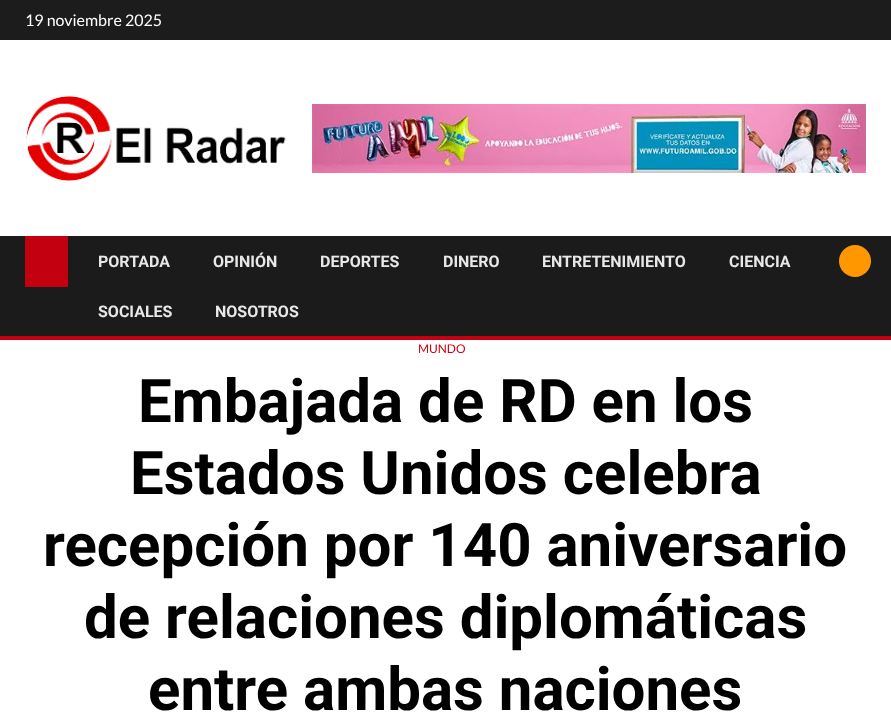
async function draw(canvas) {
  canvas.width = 891
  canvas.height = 728
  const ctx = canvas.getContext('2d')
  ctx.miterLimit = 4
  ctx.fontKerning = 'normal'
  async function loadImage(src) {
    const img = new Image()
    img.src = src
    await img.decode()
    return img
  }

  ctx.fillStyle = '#fff'
  ctx.fillRect(0, 0, 891, 728)
  ctx.fillStyle = '#1c1c1c'
  ctx.fillRect(0, 0, 891, 40)
  ctx.font = '16px Lato'
  ctx.fillStyle = '#fff'
  ctx.fillText('19 noviembre 2025', 25, 26)
  ctx.drawImage(await loadImage('image0.png'), 26, 96, 260, 85)
  ctx.drawImage(await loadImage('image1.png'), 312, 104, 554, 69)
  ctx.fillStyle = '#1b1b1b'
  ctx.fillRect(0, 236, 891, 100)
  ctx.fillStyle = '#c30010'
  ctx.fillRect(0, 336, 891, 4)
  ctx.fillRect(25, 236, 43, 51)
  ctx.font = 'bold 16px Roboto'
  ctx.fillStyle = '#e8e8e8'
  ctx.fillText('PORTADA', 98, 267)
  ctx.fillText('OPINIÓN', 213, 267)
  ctx.fillText('DEPORTES', 320, 267)
  ctx.fillText('DINERO', 443, 267)
  ctx.fillText('ENTRETENIMIENTO', 542, 267)
  ctx.fillText('CIENCIA', 729, 267)
  ctx.fillText('SOCIALES', 98, 317)
  ctx.fillText('NOSOTROS', 215, 317)
  ctx.fillStyle = '#ff9800'
  ctx.beginPath()
  ctx.arc(855, 261, 16, 0, 2 * Math.PI)
  ctx.fill()
  ctx.font = '12px Lato'
  ctx.fillStyle = '#cc0010'
  ctx.fillText('MUNDO', 418, 353)
  ctx.font = 'bold 60px Roboto'
  ctx.fillStyle = '#000'
  ctx.fillText('Embajada de RD en los', 138, 422)
  ctx.fillText('Estados Unidos celebra', 130, 494)
  ctx.fillText('recepción por 140 aniversario', 43, 566)
  ctx.fillText('de relaciones diplomáticas', 84, 638)
  ctx.fillText('entre ambas naciones', 148, 710)
}

draw(document.querySelector('canvas'))
